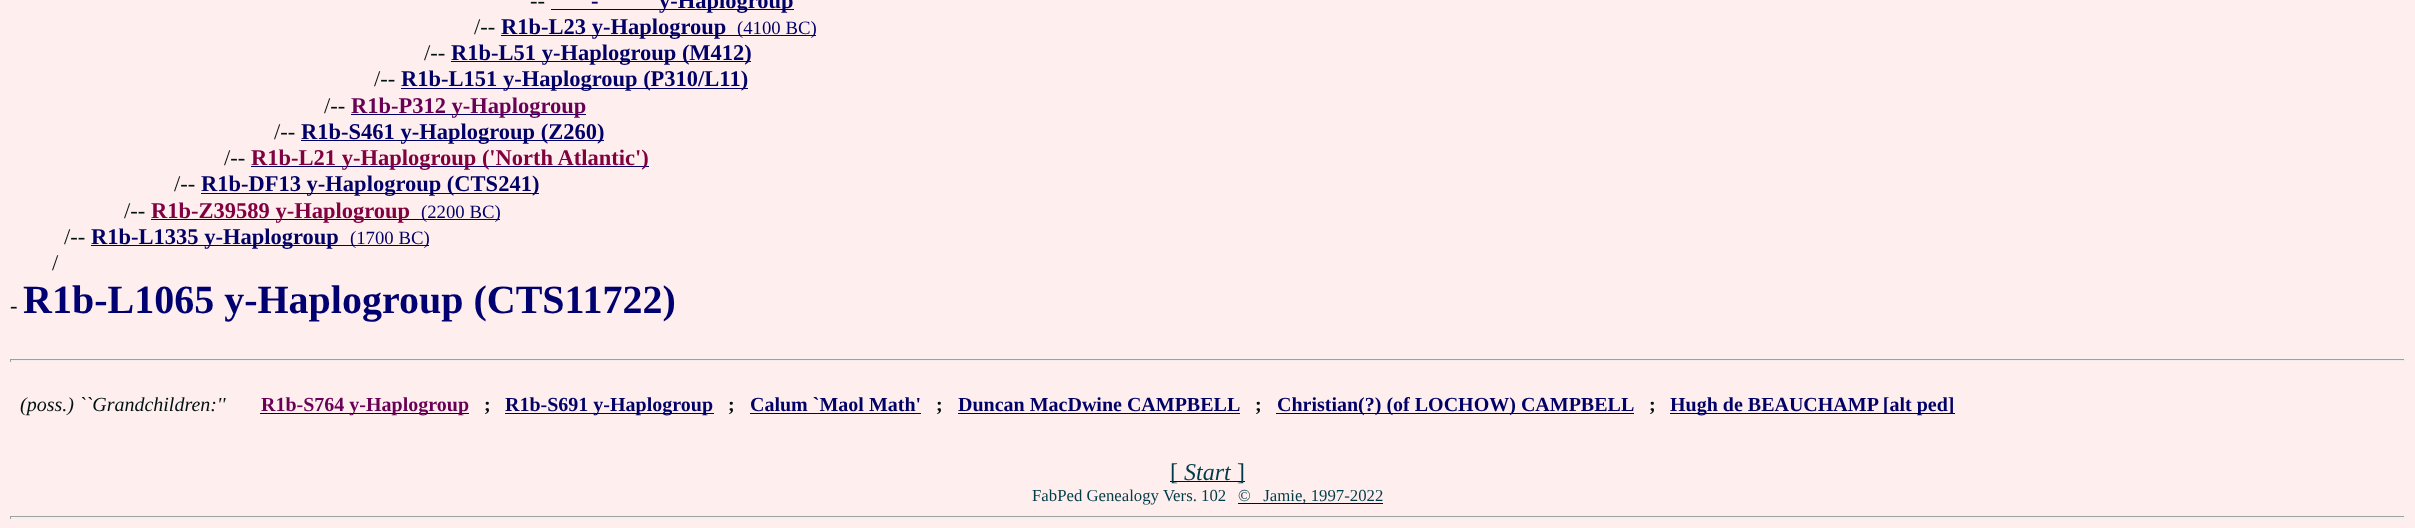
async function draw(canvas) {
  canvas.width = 2415
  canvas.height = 528
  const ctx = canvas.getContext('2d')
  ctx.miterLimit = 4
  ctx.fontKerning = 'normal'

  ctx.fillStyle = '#fee'
  ctx.fillRect(0, 0, 2415, 528)
  ctx.font = '22.5px Liberation Serif'
  ctx.fillStyle = '#011'
  ctx.fillText('--', 530, 8)
  ctx.font = 'bold 22.5px Liberation Serif'
  ctx.fillStyle = '#006'
  ctx.fillText('-', 591, 8)
  ctx.fillRect(551, 9, 243, 1)
  ctx.fillText('y-Haplogroup', 659, 8)
  ctx.font = '22.5px Liberation Serif'
  ctx.fillStyle = '#011'
  ctx.fillText('/--', 474, 34)
  ctx.fillStyle = '#006'
  ctx.fillRect(501, 35, 315, 1)
  ctx.font = 'bold 22.5px Liberation Serif'
  ctx.fillText('R1b-L23 y-Haplogroup', 501, 34)
  ctx.font = '18.75px Liberation Serif'
  ctx.fillText('(4100 BC)', 737, 34)
  ctx.font = '22.5px Liberation Serif'
  ctx.fillStyle = '#011'
  ctx.fillText('/--', 424, 60)
  ctx.fillStyle = '#006'
  ctx.fillRect(451, 61, 300, 1)
  ctx.font = 'bold 22.5px Liberation Serif'
  ctx.fillText('R1b-L51 y-Haplogroup (M412)', 451, 60)
  ctx.font = '22.5px Liberation Serif'
  ctx.fillStyle = '#011'
  ctx.fillText('/--', 374, 86)
  ctx.fillStyle = '#006'
  ctx.fillRect(401, 88, 347, 1)
  ctx.font = 'bold 22.5px Liberation Serif'
  ctx.fillText('R1b-L151 y-Haplogroup (P310/L11)', 401, 86)
  ctx.font = '22.5px Liberation Serif'
  ctx.fillStyle = '#011'
  ctx.fillText('/--', 324, 113)
  ctx.fillStyle = '#006'
  ctx.fillRect(351, 114, 235, 1)
  ctx.font = 'bold 22.5px Liberation Serif'
  ctx.fillStyle = '#680056'
  ctx.fillText('R1b-P312 y-Haplogroup', 351, 113)
  ctx.font = '22.5px Liberation Serif'
  ctx.fillStyle = '#011'
  ctx.fillText('/--', 274, 139)
  ctx.fillStyle = '#006'
  ctx.fillRect(301, 140, 303, 1)
  ctx.font = 'bold 22.5px Liberation Serif'
  ctx.fillText('R1b-S461 y-Haplogroup (Z260)', 301, 139)
  ctx.font = '22.5px Liberation Serif'
  ctx.fillStyle = '#011'
  ctx.fillText('/--', 224, 165)
  ctx.fillStyle = '#006'
  ctx.fillRect(251, 166, 398, 1)
  ctx.font = 'bold 22.5px Liberation Serif'
  ctx.fillStyle = '#800040'
  ctx.fillText('R1b-L21 y-Haplogroup (\'North Atlantic\')', 251, 165)
  ctx.font = '22.5px Liberation Serif'
  ctx.fillStyle = '#011'
  ctx.fillText('/--', 174, 191)
  ctx.fillStyle = '#006'
  ctx.fillRect(201, 193, 338, 1)
  ctx.font = 'bold 22.5px Liberation Serif'
  ctx.fillText('R1b-DF13 y-Haplogroup (CTS241)', 201, 191)
  ctx.font = '22.5px Liberation Serif'
  ctx.fillStyle = '#011'
  ctx.fillText('/--', 124, 218)
  ctx.fillStyle = '#006'
  ctx.fillRect(151, 219, 349, 1)
  ctx.font = 'bold 22.5px Liberation Serif'
  ctx.fillStyle = '#800040'
  ctx.fillText('R1b-Z39589 y-Haplogroup', 151, 218)
  ctx.font = '18.75px Liberation Serif'
  ctx.fillStyle = '#006'
  ctx.fillText('(2200 BC)', 421, 218)
  ctx.font = '22.5px Liberation Serif'
  ctx.fillStyle = '#011'
  ctx.fillText('/--', 64, 244)
  ctx.fillStyle = '#006'
  ctx.fillRect(91, 245, 338, 1)
  ctx.font = 'bold 22.5px Liberation Serif'
  ctx.fillText('R1b-L1335 y-Haplogroup', 91, 244)
  ctx.font = '18.75px Liberation Serif'
  ctx.fillText('(1700 BC)', 350, 244)
  ctx.font = '22.5px Liberation Serif'
  ctx.fillStyle = '#011'
  ctx.fillText('/', 52, 270)
  ctx.fillText('-', 10, 313)
  ctx.font = 'bold 40px Liberation Serif'
  ctx.fillStyle = '#000070'
  ctx.fillText('R1b-L1065 y-Haplogroup (CTS11722)', 23, 313)
  ctx.fillStyle = '#9f9f9f'
  ctx.fillRect(10, 359, 2395, 1)
  ctx.fillStyle = '#eee'
  ctx.fillRect(2404, 359, 1, 3)
  ctx.fillRect(10, 360, 2395, 1)
  ctx.fillStyle = '#9f9f9f'
  ctx.fillRect(10, 359, 1, 3)
  ctx.font = 'italic 20px Liberation Serif'
  ctx.fillStyle = '#011'
  ctx.fillText('(poss.) ``Grandchildren:\'\'', 20, 411)
  ctx.fillStyle = '#006'
  ctx.fillRect(260, 413, 209, 1)
  ctx.font = 'bold 20px Liberation Serif'
  ctx.fillStyle = '#680056'
  ctx.fillText('R1b-S764 y-Haplogroup', 261, 411)
  ctx.fillStyle = '#011'
  ctx.fillText(';', 484, 411)
  ctx.fillStyle = '#006'
  ctx.fillRect(505, 413, 209, 1)
  ctx.fillText('R1b-S691 y-Haplogroup', 505, 411)
  ctx.fillStyle = '#011'
  ctx.fillText(';', 728, 411)
  ctx.fillStyle = '#006'
  ctx.fillText('Calum `Maol Math\'', 750, 411)
  ctx.fillRect(750, 413, 171, 1)
  ctx.fillStyle = '#011'
  ctx.fillText(';', 936, 411)
  ctx.fillStyle = '#006'
  ctx.fillText('Duncan MacDwine CAMPBELL', 958, 411)
  ctx.fillRect(958, 413, 282, 1)
  ctx.fillStyle = '#011'
  ctx.fillText(';', 1255, 411)
  ctx.fillStyle = '#006'
  ctx.fillRect(1276, 413, 358, 1)
  ctx.fillText('Christian(?) (of LOCHOW) CAMPBELL', 1277, 411)
  ctx.fillStyle = '#011'
  ctx.fillText(';', 1649, 411)
  ctx.fillStyle = '#006'
  ctx.fillRect(1670, 413, 285, 1)
  ctx.fillText('Hugh de BEAUCHAMP [alt ped]', 1670, 411)
  ctx.fillRect(1170, 481, 75, 1)
  ctx.font = '24px Liberation Serif'
  ctx.fillStyle = '#003c48'
  ctx.fillText('[', 1170, 480)
  ctx.font = 'italic 24px Liberation Serif'
  ctx.fillText('Start', 1184, 480)
  ctx.font = '24px Liberation Serif'
  ctx.fillText(']', 1237, 480)
  ctx.font = '16.75px Liberation Serif'
  ctx.fillText('FabPed Genealogy Vers. 102', 1032, 501)
  ctx.fillStyle = '#006'
  ctx.fillRect(1238, 503, 145, 1)
  ctx.fillStyle = '#003c48'
  ctx.fillText('©   Jamie, 1997-2022', 1238, 501)
  ctx.fillStyle = '#9f9f9f'
  ctx.fillRect(10, 516, 2395, 1)
  ctx.fillStyle = '#eee'
  ctx.fillRect(2404, 516, 1, 3)
  ctx.fillRect(10, 518, 2395, 1)
  ctx.fillStyle = '#9f9f9f'
  ctx.fillRect(10, 516, 1, 3)
}

draw(document.querySelector('canvas'))
